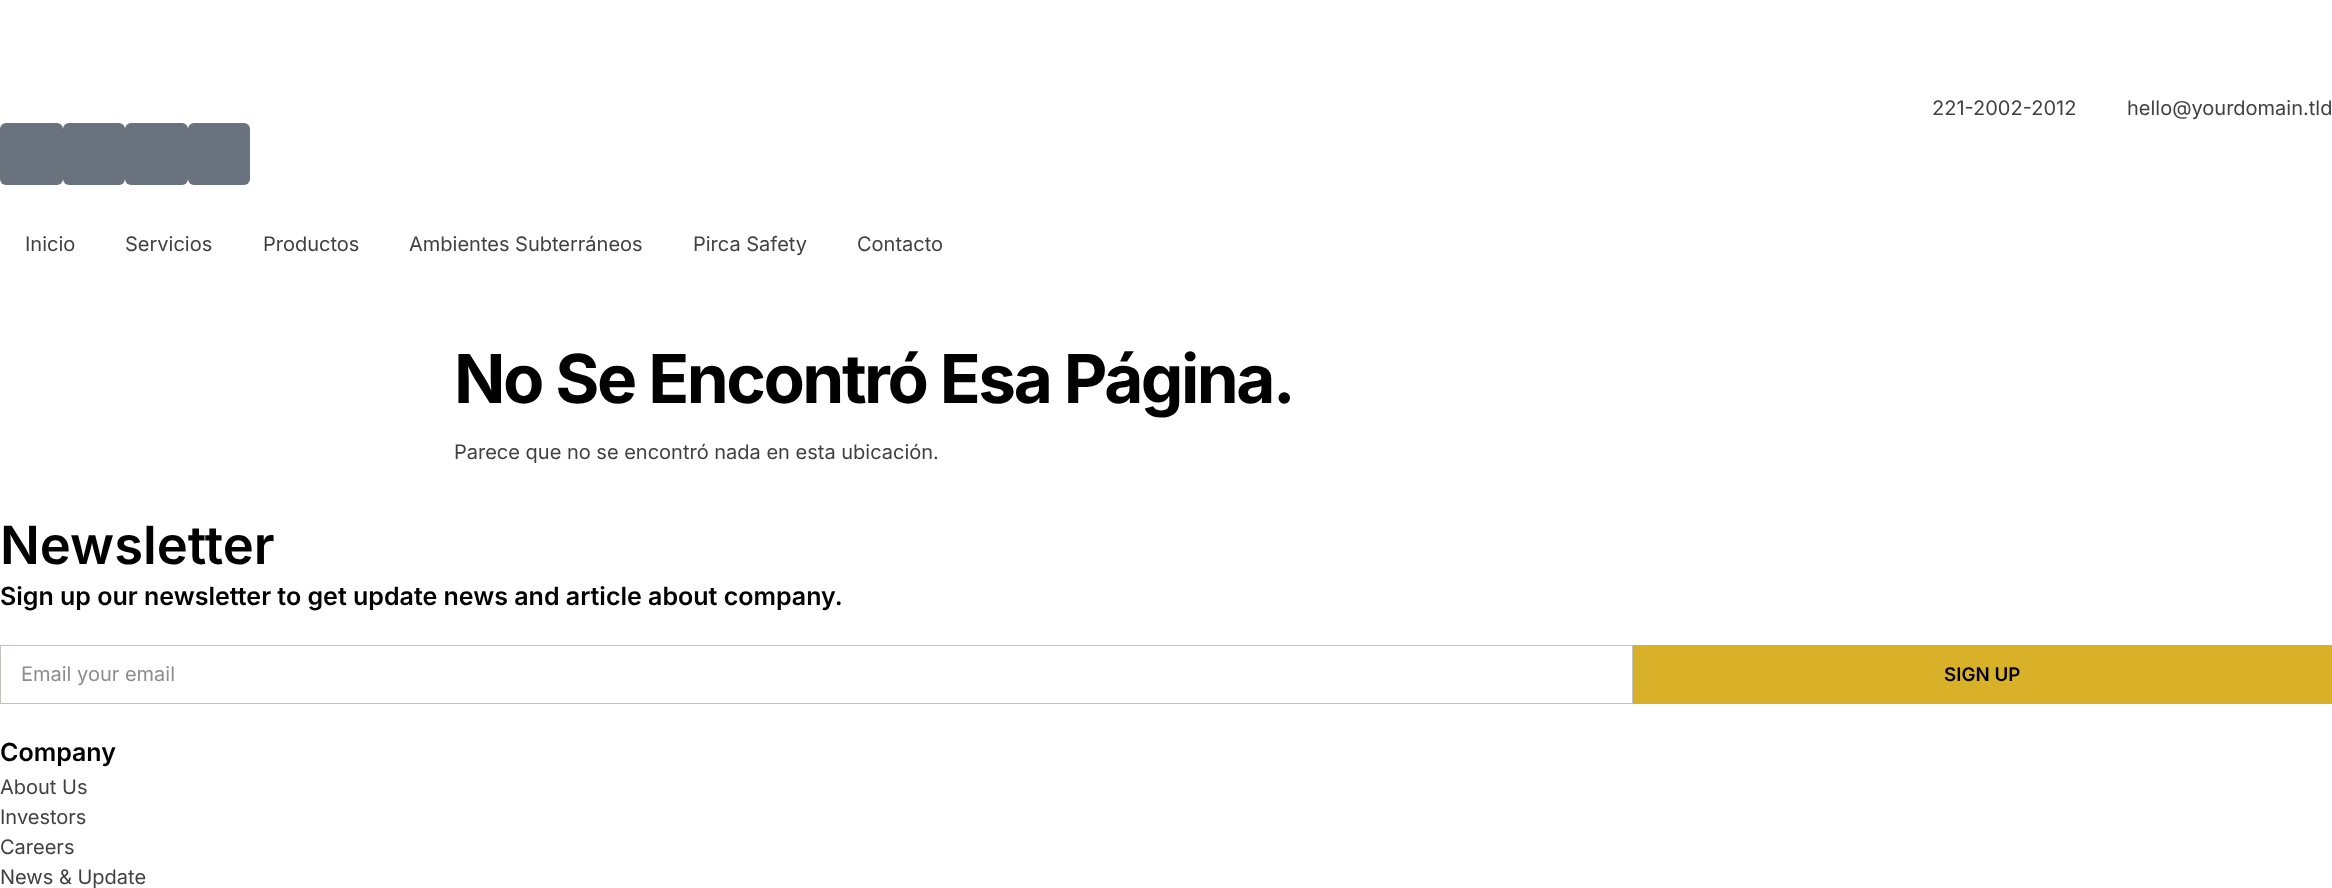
async function draw(canvas) {
  canvas.width = 2332
  canvas.height = 888
  const ctx = canvas.getContext('2d')
  ctx.miterLimit = 4
  ctx.fontKerning = 'normal'

  ctx.fillStyle = '#fff'
  ctx.fillRect(0, 0, 2332, 888)
  ctx.font = '20px Inter'
  ctx.fillStyle = '#414141'
  ctx.fillText('221-2002-2012', 1932, 115)
  ctx.fillText('hello@yourdomain.tld', 2127, 115)
  ctx.fillStyle = '#69727d'
  ctx.beginPath()
  ctx.roundRect(0, 123, 63, 62, 6)
  ctx.fill()
  ctx.beginPath()
  ctx.roundRect(63, 123, 62, 62, 6)
  ctx.fill()
  ctx.beginPath()
  ctx.roundRect(125, 123, 63, 62, 6)
  ctx.fill()
  ctx.beginPath()
  ctx.roundRect(188, 123, 62, 62, 6)
  ctx.fill()
  ctx.fillStyle = '#414141'
  ctx.fillText('Inicio', 25, 251)
  ctx.fillText('Servicios', 125, 251)
  ctx.fillText('Productos', 263, 251)
  ctx.fillText('Ambientes Subterráneos', 409, 251)
  ctx.fillText('Pirca Safety', 693, 251)
  ctx.fillText('Contacto', 857, 251)
  ctx.letterSpacing = '-2.5px'
  ctx.font = 'bold 67.5px Inter'
  ctx.fillStyle = '#010101'
  ctx.fillText('No Se Encontró Esa Página.', 454, 403)
  ctx.letterSpacing = '0px'
  ctx.font = '20px Inter'
  ctx.fillStyle = '#414141'
  ctx.fillText('Parece que no se encontró nada en esta ubicación.', 454, 459)
  ctx.font = '600 52.5px Inter'
  ctx.fillStyle = '#010101'
  ctx.fillText('Newsletter', 0, 564)
  ctx.font = '600 25px Inter'
  ctx.fillText('Sign up our newsletter to get update news and article about company.', 0, 605)
  ctx.strokeStyle = '#bfc4c0'
  ctx.strokeRect(0.5, 645.5, 1632, 58)
  ctx.font = '20px Inter'
  ctx.fillStyle = '#8d8d8d'
  ctx.fillText('Email your email', 21, 681)
  ctx.fillStyle = '#d9b128'
  ctx.fillRect(1633, 645, 699, 59)
  ctx.font = '600 18.75px Inter'
  ctx.fillStyle = '#010101'
  ctx.fillText('SIGN UP', 1944, 681)
  ctx.font = '600 25px Inter'
  ctx.fillText('Company', 0, 761)
  ctx.font = '20px Inter'
  ctx.fillStyle = '#414141'
  ctx.fillText('About Us', 0, 794)
  ctx.fillText('Investors', 0, 824)
  ctx.fillText('Careers', 0, 854)
  ctx.fillText('News & Update', 0, 884)
}

draw(document.querySelector('canvas'))
